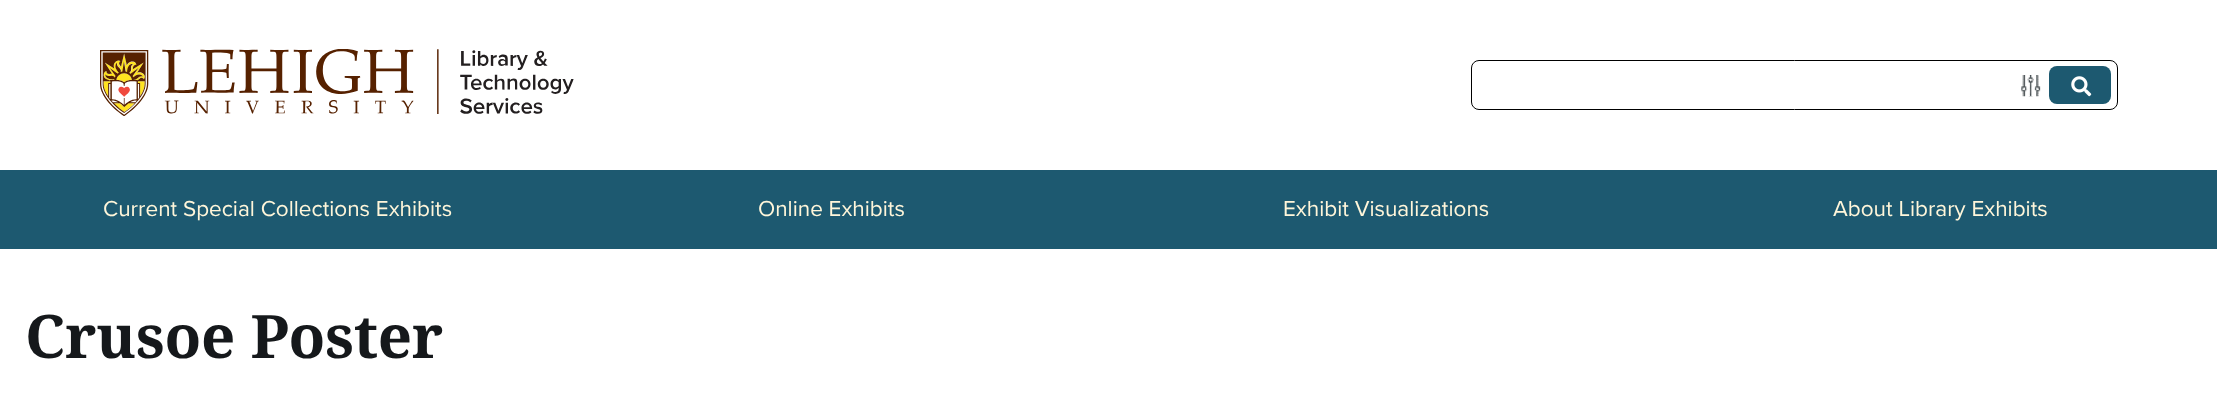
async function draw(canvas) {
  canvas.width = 2217
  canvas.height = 419
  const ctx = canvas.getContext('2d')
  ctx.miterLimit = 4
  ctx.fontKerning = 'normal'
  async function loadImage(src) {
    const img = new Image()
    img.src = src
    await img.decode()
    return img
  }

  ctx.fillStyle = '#fff'
  ctx.fillRect(0, 0, 2217, 419)
  ctx.drawImage(await loadImage('image0.png'), 100, 49, 474, 67)
  ctx.beginPath()
  ctx.roundRect(1471.5, 60.5, 646, 49, 7.5)
  ctx.strokeStyle = '#000'
  ctx.stroke()
  ctx.drawImage(await loadImage('image1.png'), 2021, 75, 20, 22)
  ctx.fillStyle = '#1d5970'
  ctx.beginPath()
  ctx.roundRect(2049, 66, 62, 38, 8)
  ctx.fill()
  ctx.drawImage(await loadImage('image2.png'), 2071, 76, 21, 21)
  ctx.fillRect(0, 170, 2217, 79)
  ctx.font = '22.5px Proxima Nova'
  ctx.fillStyle = '#fff6da'
  ctx.fillText('Current Special Collections Exhibits', 103, 216)
  ctx.fillText('Online Exhibits', 758, 216)
  ctx.fillText('Exhibit Visualizations', 1283, 216)
  ctx.fillText('About Library Exhibits', 1833, 216)
  ctx.letterSpacing = '-0.25px'
  ctx.font = 'bold 60px Noto Serif'
  ctx.fillStyle = '#15181b'
  ctx.fillText('Crusoe Poster', 25, 358)
}

draw(document.querySelector('canvas'))
